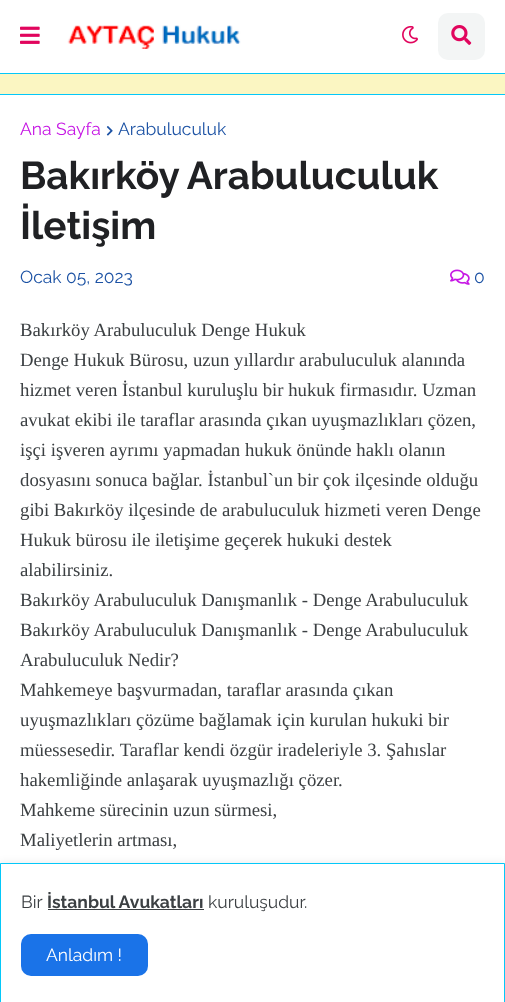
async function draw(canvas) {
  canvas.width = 505
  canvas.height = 1002
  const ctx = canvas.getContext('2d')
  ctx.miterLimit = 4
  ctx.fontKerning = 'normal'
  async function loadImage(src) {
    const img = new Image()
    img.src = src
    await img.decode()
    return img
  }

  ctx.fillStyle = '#fbf6c2'
  ctx.fillRect(0, 0, 505, 1002)
  ctx.fillStyle = '#fff'
  ctx.fillRect(0, 0, 505, 73)
  ctx.fillStyle = '#04c8f9'
  ctx.fillRect(0, 73, 505, 1)
  ctx.drawImage(await loadImage('image0.png'), 20, 26, 20, 18)
  ctx.drawImage(await loadImage('image1.png'), 67, 25, 174, 24)
  ctx.drawImage(await loadImage('image2.png'), 402, 25, 16, 19)
  ctx.fillStyle = '#f3f5f5'
  ctx.beginPath()
  ctx.roundRect(438, 13, 47, 47, 10)
  ctx.fill()
  ctx.drawImage(await loadImage('image3.png'), 451, 25, 21, 20)
  ctx.fillStyle = '#fff'
  ctx.fillRect(0, 95, 505, 768)
  ctx.fillStyle = '#04c8f9'
  ctx.fillRect(0, 94, 505, 1)
  ctx.font = '17.5px Raleway'
  ctx.fillStyle = '#c617e4'
  ctx.fillText('Ana Sayfa', 20, 135)
  ctx.drawImage(await loadImage('image4.png'), 106, 126, 7, 10)
  ctx.fillStyle = '#1c52a4'
  ctx.fillText('Arabuluculuk', 118, 135)
  ctx.font = 'bold 38.75px Raleway'
  ctx.fillStyle = '#202124'
  ctx.fillText('Bakırköy Arabuluculuk', 20, 189)
  ctx.fillText('İletişim', 20, 239)
  ctx.font = '17.5px Raleway'
  ctx.fillStyle = '#1c52a4'
  ctx.fillText('Ocak 05, 2023', 20, 283)
  ctx.drawImage(await loadImage('image5.png'), 450, 269, 20, 16)
  ctx.fillText('0', 474, 283)
  ctx.font = '18.75px Liberation Serif'
  ctx.fillStyle = '#3c4043'
  ctx.fillText('Bakırköy Arabuluculuk Denge Hukuk', 20, 336)
  ctx.fillText('Denge Hukuk Bürosu, uzun yıllardır arabuluculuk alanında', 20, 366)
  ctx.fillText('hizmet veren İstanbul kuruluşlu bir hukuk firmasıdır. Uzman', 20, 396)
  ctx.fillText('avukat ekibi ile taraflar arasında çıkan uyuşmazlıkları çözen,', 20, 426)
  ctx.fillText('işçi işveren ayrımı yapmadan hukuk önünde haklı olanın', 20, 456)
  ctx.fillText('dosyasını sonuca bağlar. İstanbul`un bir çok ilçesinde olduğu', 20, 486)
  ctx.fillText('gibi Bakırköy ilçesinde de arabuluculuk hizmeti veren Denge', 20, 516)
  ctx.fillText('Hukuk bürosu ile iletişime geçerek hukuki destek', 20, 546)
  ctx.fillText('alabilirsiniz.', 20, 576)
  ctx.fillText('Bakırköy Arabuluculuk Danışmanlık - Denge Arabuluculuk', 20, 606)
  ctx.fillText('Bakırköy Arabuluculuk Danışmanlık - Denge Arabuluculuk', 20, 636)
  ctx.fillText('Arabuluculuk Nedir?', 20, 666)
  ctx.fillText('Mahkemeye başvurmadan, taraflar arasında çıkan', 20, 696)
  ctx.fillText('uyuşmazlıkları çözüme bağlamak için kurulan hukuki bir', 20, 726)
  ctx.fillText('müessesedir. Taraflar kendi özgür iradeleriyle 3. Şahıslar', 20, 756)
  ctx.fillText('hakemliğinde anlaşarak uyuşmazlığı çözer.', 20, 786)
  ctx.fillText('Mahkeme sürecinin uzun sürmesi,', 20, 816)
  ctx.fillText('Maliyetlerin artması,', 20, 846)
  ctx.fillStyle = '#0000001a'
  ctx.filter = 'blur(5px)'
  ctx.beginPath()
  ctx.rect(0, 864, 505, 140)
  ctx.fill()
  ctx.filter = 'none'
  ctx.fillStyle = '#fff'
  ctx.beginPath()
  ctx.rect(0.5, 863.5, 504, 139)
  ctx.fill()
  ctx.strokeStyle = '#04c8f9'
  ctx.stroke()
  ctx.font = '17.5px Raleway'
  ctx.fillStyle = '#3c4043'
  ctx.fillText('Bir', 21, 908)
  ctx.font = 'bold 17.5px Raleway'
  ctx.fillText('İstanbul Avukatları', 47, 908)
  ctx.fillRect(48, 909, 156, 1)
  ctx.font = '17.5px Raleway'
  ctx.fillText('kuruluşudur.', 208, 908)
  ctx.fillStyle = '#1a73e8'
  ctx.beginPath()
  ctx.roundRect(21, 934, 127, 42, 10)
  ctx.fill()
  ctx.fillStyle = '#fff'
  ctx.fillText('Anladım !', 46, 961)
}

draw(document.querySelector('canvas'))
